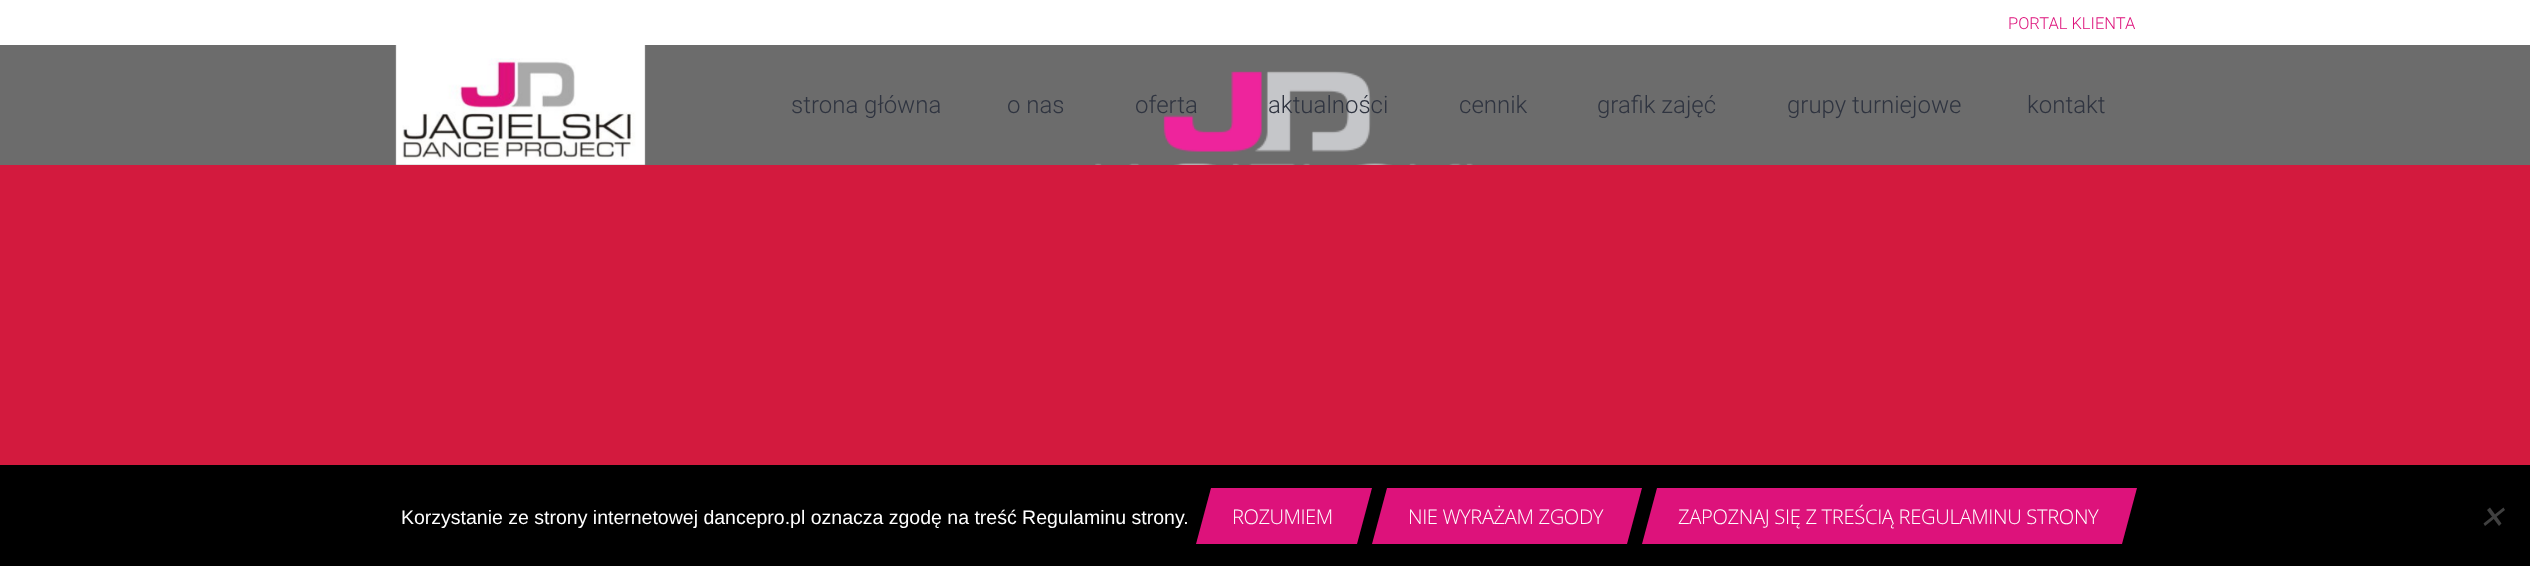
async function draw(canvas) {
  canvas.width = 2530
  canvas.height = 566
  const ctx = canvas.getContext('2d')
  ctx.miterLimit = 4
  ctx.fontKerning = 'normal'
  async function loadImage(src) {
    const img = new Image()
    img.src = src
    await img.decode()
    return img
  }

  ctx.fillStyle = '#545454'
  ctx.fillRect(0, 0, 2530, 566)
  ctx.fillStyle = '#fff'
  ctx.fillRect(0, 0, 2530, 45)
  ctx.font = '300 16.5px Roboto'
  ctx.fillStyle = '#dd127b'
  ctx.fillText('PORTAL KLIENTA', 2008, 29)
  ctx.drawImage(await loadImage('image1.png'), 1095, 71, 378, 94)
  ctx.fillStyle = '#ffffff24'
  ctx.fillRect(0, 45, 2530, 120)
  ctx.drawImage(await loadImage('image0.png'), 395, 45, 251, 120)
  ctx.font = '300 24px Roboto'
  ctx.fillStyle = '#2f3440'
  ctx.fillText('strona główna', 791, 113)
  ctx.fillText('o nas', 1007, 113)
  ctx.fillText('oferta', 1135, 113)
  ctx.fillText('aktualności', 1268, 113)
  ctx.fillText('cennik', 1459, 113)
  ctx.fillText('grafik zajęć', 1597, 113)
  ctx.fillText('grupy turniejowe', 1787, 113)
  ctx.fillText('kontakt', 2027, 113)
  ctx.fillStyle = '#d31a3e'
  ctx.fillRect(0, 165, 2530, 300)
  ctx.fillStyle = '#000'
  ctx.fillRect(0, 465, 2530, 101)
  ctx.font = '19.5px Liberation Sans'
  ctx.fillStyle = '#fff'
  ctx.fillText('Korzystanie ze strony internetowej dancepro.pl oznacza zgodę na treść Regulaminu strony.', 401, 524)
  ctx.fillStyle = '#dd127b'
  ctx.beginPath()
  ctx.moveTo(1211, 488)
  ctx.lineTo(1372, 488)
  ctx.lineTo(1357, 544)
  ctx.lineTo(1196, 544)
  ctx.closePath()
  ctx.fill()
  ctx.letterSpacing = '-0.5px'
  ctx.font = '300 20.2px Open Sans'
  ctx.fillStyle = '#fff'
  ctx.fillText('ROZUMIEM', 1232, 524)
  ctx.fillStyle = '#dd127b'
  ctx.beginPath()
  ctx.moveTo(1387, 488)
  ctx.lineTo(1642, 488)
  ctx.lineTo(1627, 544)
  ctx.lineTo(1372, 544)
  ctx.closePath()
  ctx.fill()
  ctx.letterSpacing = '-0.4px'
  ctx.fillStyle = '#fff'
  ctx.fillText('NIE WYRAŻAM ZGODY', 1408, 524)
  ctx.fillStyle = '#dd127b'
  ctx.beginPath()
  ctx.moveTo(1657, 488)
  ctx.lineTo(2137, 488)
  ctx.lineTo(2122, 544)
  ctx.lineTo(1642, 544)
  ctx.closePath()
  ctx.fill()
  ctx.letterSpacing = '-0.35px'
  ctx.fillStyle = '#fff'
  ctx.fillText('ZAPOZNAJ SIĘ Z TREŚCIĄ REGULAMINU STRONY', 1678, 524)
  ctx.fillStyle = '#404040'
  ctx.beginPath()
  ctx.moveTo(2503.5, 507.5)
  ctx.lineTo(2505, 510)
  ctx.lineTo(2485, 526)
  ctx.lineTo(2483.5, 523.5)
  ctx.closePath()
  ctx.fill()
  ctx.beginPath()
  ctx.moveTo(2487, 510)
  ctx.lineTo(2490, 507.5)
  ctx.lineTo(2501.5, 523.5)
  ctx.lineTo(2499, 526)
  ctx.closePath()
  ctx.fill()
}

draw(document.querySelector('canvas'))
